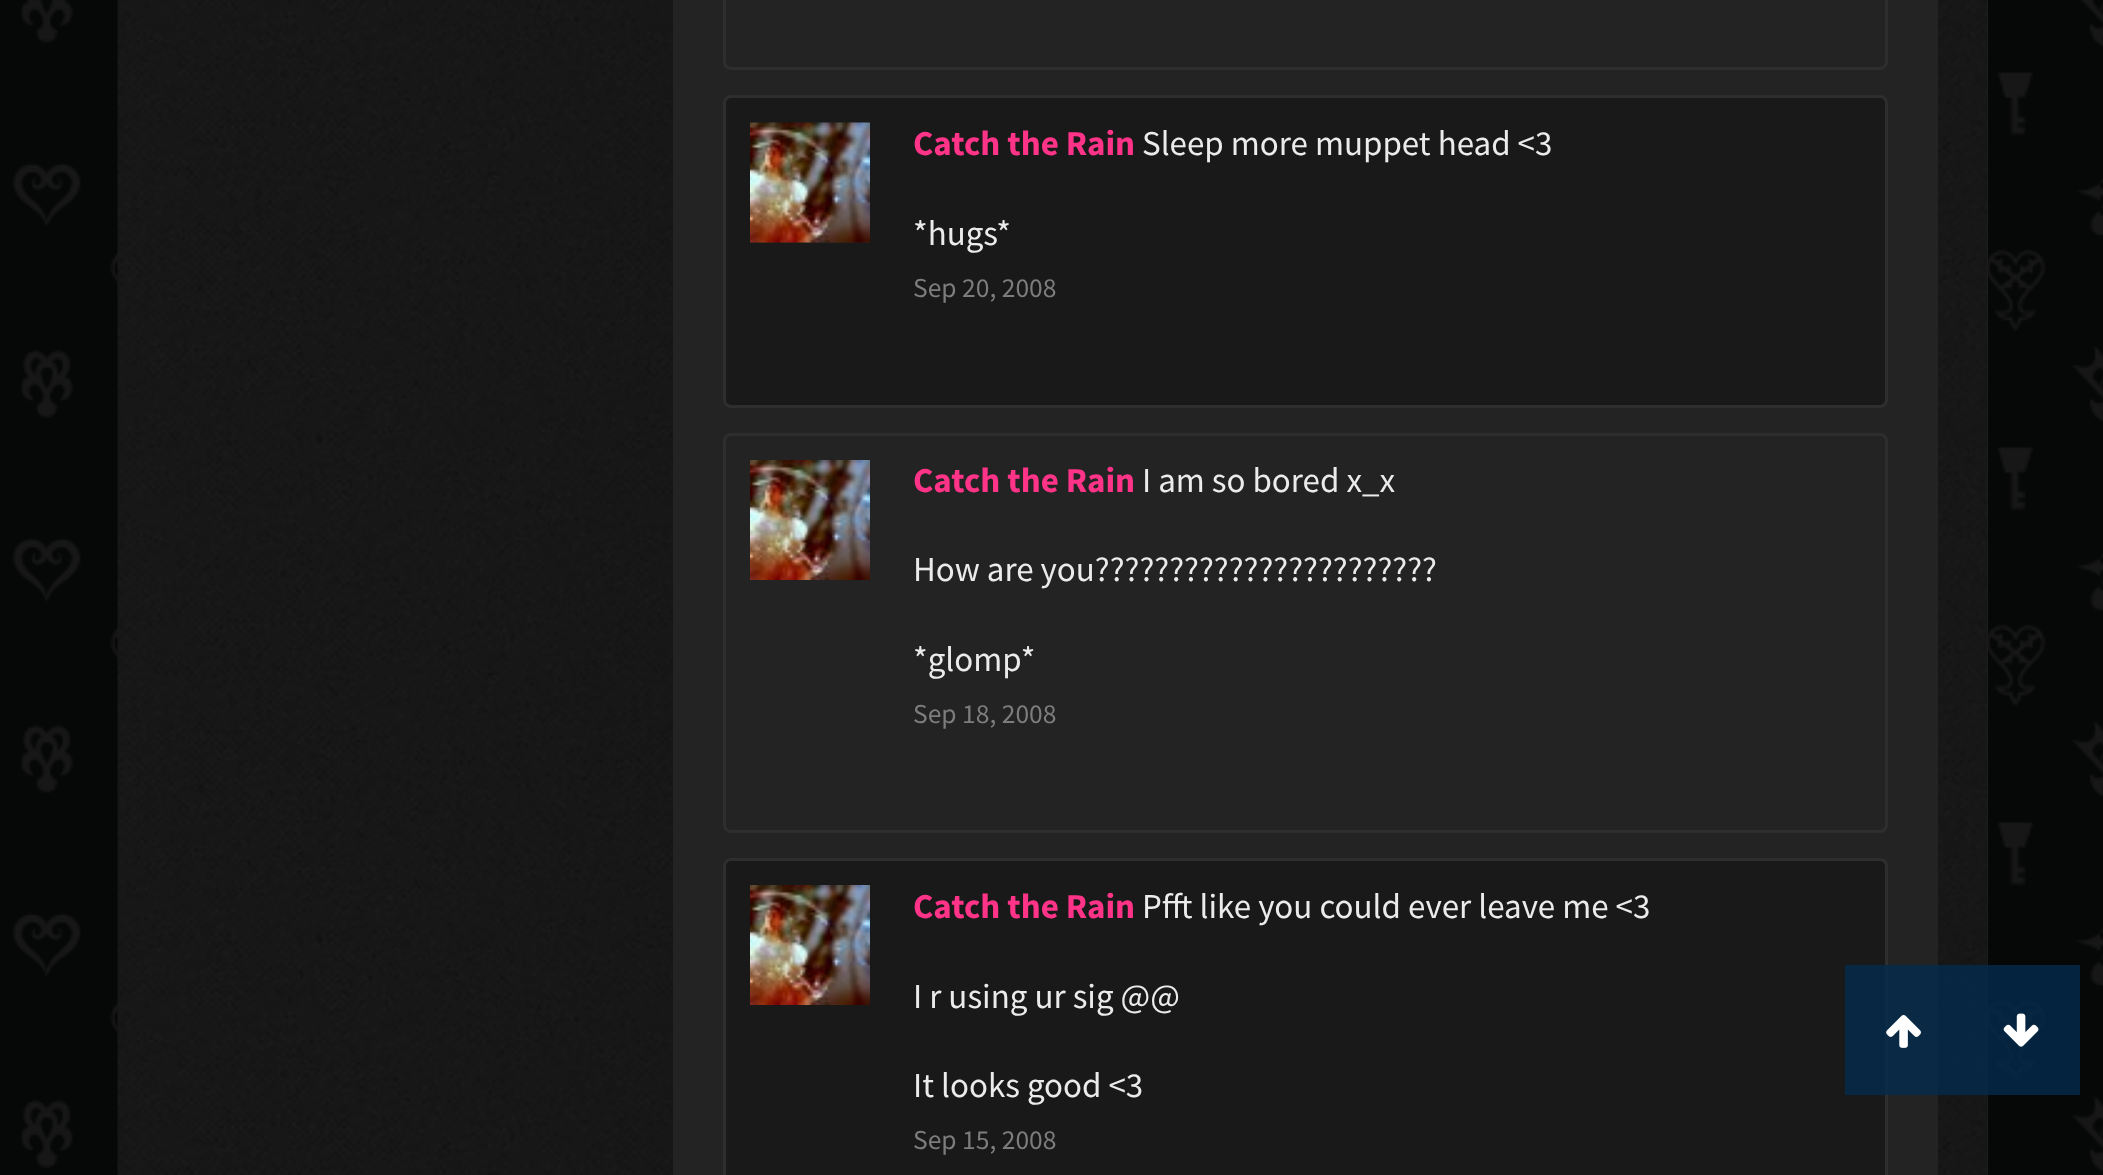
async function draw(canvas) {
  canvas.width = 2103
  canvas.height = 1175
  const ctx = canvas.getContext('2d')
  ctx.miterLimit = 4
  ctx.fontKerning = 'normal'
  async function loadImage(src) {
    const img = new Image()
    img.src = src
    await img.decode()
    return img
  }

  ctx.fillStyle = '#fff'
  ctx.fillRect(0, 0, 2103, 1175)
  ctx.drawImage(await loadImage('image0.png'), 0, 0, 2103, 1175)
  ctx.fillStyle = '#232323'
  ctx.fillRect(1987, 0, 1, 1175)
  ctx.drawImage(await loadImage('image1.png'), 117, 0, 1871, 1175)
  ctx.fillRect(673, 0, 1265, 1175)
  ctx.beginPath()
  ctx.roundRect(724.5, -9.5, 1162, 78, 6.5)
  ctx.strokeStyle = '#2e2e2e'
  ctx.lineWidth = 3
  ctx.stroke()
  ctx.fillStyle = '#191919'
  ctx.beginPath()
  ctx.roundRect(724.5, 96.5, 1162, 310, 6.5)
  ctx.fill()
  ctx.stroke()
  ctx.fillStyle = '#232323'
  ctx.fillRect(750, 242, 120, 1)
  ctx.drawImage(await loadImage('image2.png'), 750, 122, 120, 121)
  ctx.font = 'bold 35px Source Sans Pro'
  ctx.fillStyle = '#ff3387'
  ctx.fillText('Catch the Rain', 913, 155)
  ctx.font = '35px Source Sans Pro'
  ctx.fillStyle = '#ebebeb'
  ctx.fillText('Sleep more muppet head <3', 1142, 155)
  ctx.fillText('*hugs*', 913, 245)
  ctx.font = '27.5px Source Sans Pro'
  ctx.fillStyle = '#7d7d7d'
  ctx.fillText('Sep 20, 2008', 913, 297)
  ctx.beginPath()
  ctx.roundRect(724.5, 434.5, 1162, 397, 6.5)
  ctx.stroke()
  ctx.drawImage(await loadImage('image3.png'), 750, 460, 120, 120)
  ctx.font = 'bold 35px Source Sans Pro'
  ctx.fillStyle = '#ff3387'
  ctx.fillText('Catch the Rain', 913, 492)
  ctx.font = '35px Source Sans Pro'
  ctx.fillStyle = '#ebebeb'
  ctx.fillText('I am so bored x_x', 1142, 492)
  ctx.fillText('How are you???????????????????????', 913, 581)
  ctx.fillText('*glomp*', 913, 671)
  ctx.font = '27.5px Source Sans Pro'
  ctx.fillStyle = '#7d7d7d'
  ctx.fillText('Sep 18, 2008', 913, 723)
  ctx.fillStyle = '#191919'
  ctx.beginPath()
  ctx.roundRect(724.5, 859.5, 1162, 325, 6.5)
  ctx.fill()
  ctx.stroke()
  ctx.drawImage(await loadImage('image3.png'), 750, 885, 120, 120)
  ctx.font = 'bold 35px Source Sans Pro'
  ctx.fillStyle = '#ff3387'
  ctx.fillText('Catch the Rain', 913, 918)
  ctx.font = '35px Source Sans Pro'
  ctx.fillStyle = '#ebebeb'
  ctx.fillText('Pfft like you could ever leave me <3', 1142, 918)
  ctx.fillText('I r using ur sig @@', 913, 1008)
  ctx.fillText('It looks good <3', 913, 1097)
  ctx.font = '27.5px Source Sans Pro'
  ctx.fillStyle = '#7d7d7d'
  ctx.fillText('Sep 15, 2008', 913, 1149)
  ctx.fillStyle = '#022b4ecc'
  ctx.fillRect(1845, 965, 118, 130)
  ctx.drawImage(await loadImage('image4.png'), 1886, 1015, 35, 33)
  ctx.fillRect(1963, 965, 117, 130)
  ctx.drawImage(await loadImage('image5.png'), 2003, 1013, 36, 34)
}

draw(document.querySelector('canvas'))
